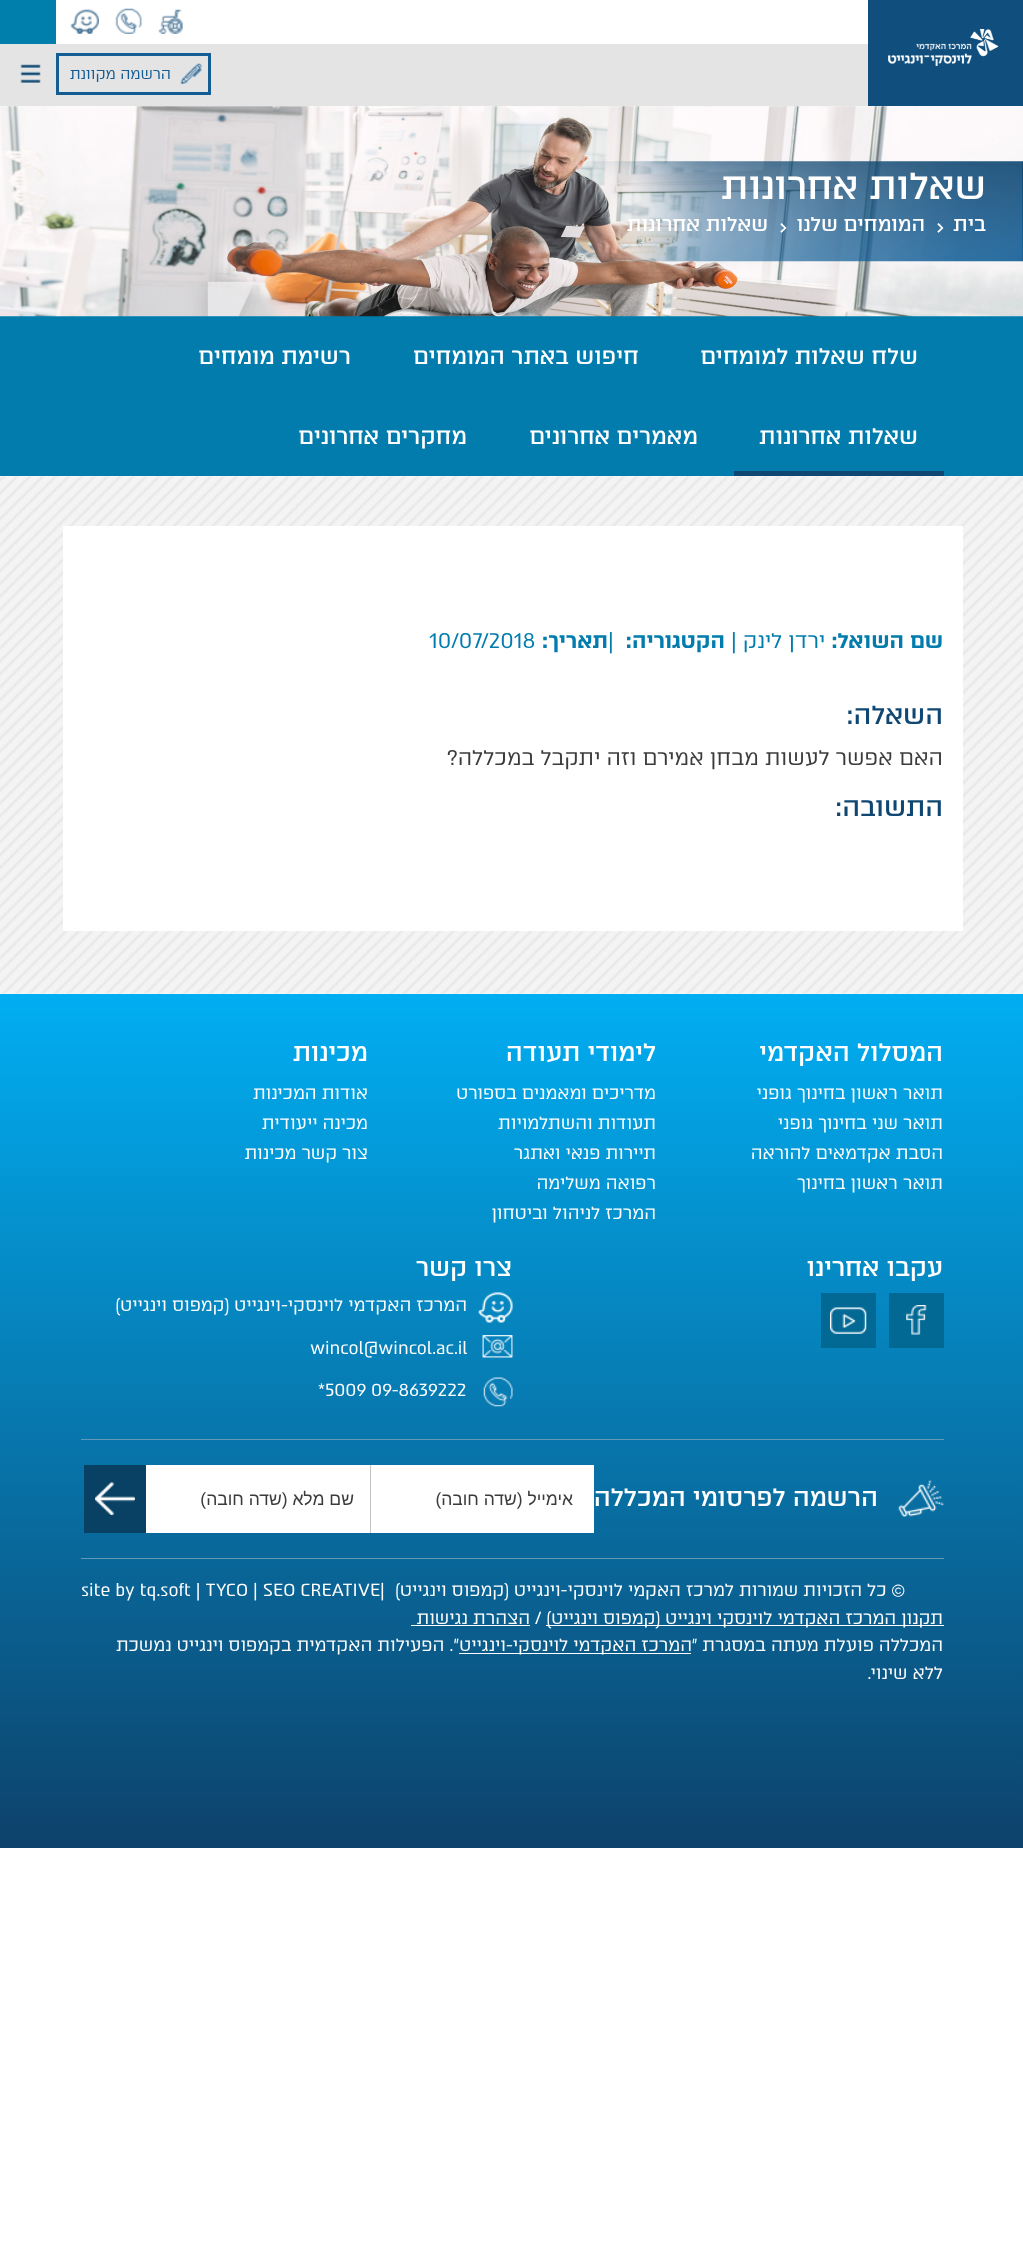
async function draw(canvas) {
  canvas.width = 1023
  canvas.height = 2254
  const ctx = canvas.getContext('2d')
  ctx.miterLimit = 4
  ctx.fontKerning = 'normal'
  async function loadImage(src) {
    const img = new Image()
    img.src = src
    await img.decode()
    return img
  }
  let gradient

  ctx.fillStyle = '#fff'
  ctx.fillRect(0, 0, 1023, 2254)
  ctx.fillStyle = '#104e7d'
  ctx.fillRect(868, 0, 155, 106)
  ctx.drawImage(await loadImage('image0.png'), 888, 29, 111, 37)
  ctx.drawImage(await loadImage('image1.png'), 158, 9, 25, 25)
  ctx.drawImage(await loadImage('image2.png'), 115, 8, 27, 26)
  ctx.drawImage(await loadImage('image3.png'), 70, 9, 29, 25)
  ctx.fillStyle = '#007fad'
  ctx.fillRect(0, 0, 56, 44)
  ctx.fillStyle = '#e4e4e4'
  ctx.fillRect(0, 44, 868, 62)
  ctx.strokeStyle = '#145d94'
  ctx.lineWidth = 3
  ctx.strokeRect(57.5, 54.5, 152, 39)
  ctx.drawImage(await loadImage('image4.png'), 180, 63, 22, 21)
  ctx.direction = 'rtl'
  ctx.font = '15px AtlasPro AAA'
  ctx.fillStyle = '#145d94'
  ctx.fillText('הרשמה מקוונת', 171, 79)
  ctx.drawImage(await loadImage('image5.png'), 20, 64, 21, 19)
  ctx.fillStyle = '#017cad'
  ctx.fillRect(0, 316, 1023, 160)
  ctx.drawImage(await loadImage('image6.png'), 0, 106, 1023, 211)
  ctx.drawImage(await loadImage('image7.png'), 586, 161, 437, 101)
  ctx.font = '500 37.5px AtlasPro AAA'
  ctx.fillStyle = '#fff'
  ctx.fillText('שאלות אחרונות', 986, 199)
  ctx.font = '500 20px AtlasPro AAA'
  ctx.fillText('בית', 986, 231)
  ctx.direction = 'ltr'
  ctx.fillText('>', 936, 234)
  ctx.direction = 'rtl'
  ctx.fillText('המומחים שלנו', 925, 231)
  ctx.direction = 'ltr'
  ctx.fillText('>', 779, 234)
  ctx.direction = 'rtl'
  ctx.fillText('שאלות אחרונות', 768, 231)
  ctx.font = '500 22.5px AtlasPro AAA'
  ctx.fillText('שלח שאלות למומחים', 918, 364)
  ctx.fillText('חיפוש באתר המומחים', 639, 364)
  ctx.fillText('רשימת מומחים', 351, 364)
  ctx.fillStyle = '#0f4772'
  ctx.fillRect(734, 471, 210, 5)
  ctx.fillStyle = '#fff'
  ctx.fillText('שאלות אחרונות', 918, 444)
  ctx.fillText('מאמרים אחרונים', 698, 444)
  ctx.fillText('מחקרים אחרונים', 467, 444)
  ctx.drawImage(await loadImage('image8.png'), 0, 476, 1023, 518)
  ctx.fillRect(63, 526, 900, 405)
  ctx.font = 'bold 21.25px AtlasPro AAA'
  ctx.fillStyle = '#017cad'
  ctx.fillText('שם השואל:', 943, 648)
  ctx.font = '21.25px AtlasPro AAA'
  ctx.fillText('ירדן לינק |', 825, 648)
  ctx.font = 'bold 21.25px AtlasPro AAA'
  ctx.fillText('הקטגוריה:', 725, 648)
  ctx.direction = 'ltr'
  ctx.font = '21.25px AtlasPro AAA'
  ctx.fillText('|', 608, 648)
  ctx.direction = 'rtl'
  ctx.font = 'bold 21.25px AtlasPro AAA'
  ctx.fillText('תאריך:', 608, 648)
  ctx.direction = 'ltr'
  ctx.font = '21.25px AtlasPro AAA'
  ctx.fillText('10/07/2018', 429, 648)
  ctx.direction = 'rtl'
  ctx.font = '500 26.25px AtlasPro AAA'
  ctx.fillStyle = '#0f4772'
  ctx.fillText('השאלה:', 943, 724)
  ctx.font = '21.25px AtlasPro AAA'
  ctx.fillStyle = '#3b3b3b'
  ctx.fillText('האם אפשר לעשות מבחן אמירם וזה יתקבל במכללה?', 943, 765)
  ctx.font = '500 26.25px AtlasPro AAA'
  ctx.fillStyle = '#0f4772'
  ctx.fillText('התשובה:', 943, 816)
  gradient = ctx.createLinearGradient(512, 994, 512, 1848)
  gradient.addColorStop(0, '#01aef2')
  gradient.addColorStop(1, '#0d426b')
  ctx.fillStyle = gradient
  ctx.fillRect(0, 994, 1023, 854)
  ctx.font = '500 25px AtlasPro AAA'
  ctx.fillStyle = '#fff'
  ctx.fillText('המסלול האקדמי', 943, 1061)
  ctx.font = '17.5px AtlasPro AAA'
  ctx.fillText('תואר ראשון בחינוך גופני', 943, 1099)
  ctx.fillText('תואר שני בחינוך גופני', 943, 1129)
  ctx.fillText('הסבת אקדמאים להוראה', 943, 1159)
  ctx.fillText('תואר ראשון בחינוך', 943, 1189)
  ctx.font = '500 25px AtlasPro AAA'
  ctx.fillText('לימודי תעודה', 656, 1061)
  ctx.font = '17.5px AtlasPro AAA'
  ctx.fillText('מדריכים ומאמנים בספורט', 656, 1099)
  ctx.fillText('תעודות והשתלמויות', 656, 1129)
  ctx.fillText('תיירות פנאי ואתגר', 656, 1159)
  ctx.fillText('רפואה משלימה', 656, 1189)
  ctx.fillText('המרכז לניהול וביטחון', 656, 1219)
  ctx.font = '500 25px AtlasPro AAA'
  ctx.fillText('מכינות', 368, 1061)
  ctx.font = '17.5px AtlasPro AAA'
  ctx.fillText('אודות המכינות', 368, 1099)
  ctx.fillText('מכינה ייעודית', 368, 1129)
  ctx.fillText('צור קשר מכינות', 368, 1159)
  ctx.font = '500 25px AtlasPro AAA'
  ctx.fillText('עקבו אחרינו', 943, 1276)
  ctx.fillStyle = '#026994'
  ctx.fillRect(889, 1293, 55, 55)
  ctx.drawImage(await loadImage('image9.png'), 906, 1305, 21, 30)
  ctx.fillRect(821, 1293, 55, 55)
  ctx.drawImage(await loadImage('image10.png'), 830, 1307, 37, 27)
  ctx.fillStyle = '#fff'
  ctx.fillText('צרו קשר', 512, 1276)
  ctx.drawImage(await loadImage('image11.png'), 478, 1292, 35, 31)
  ctx.font = '17.5px AtlasPro AAA'
  ctx.fillText('המרכז האקדמי לוינסקי-וינגייט (קמפוס וינגייט)', 467, 1311)
  ctx.drawImage(await loadImage('image12.png'), 482, 1335, 31, 23)
  ctx.direction = 'ltr'
  ctx.fillText('wincol@wincol.ac.il', 310, 1354)
  ctx.drawImage(await loadImage('image13.png'), 483, 1377, 30, 30)
  ctx.fillText('09-8639222', 371, 1396)
  ctx.fillText('*5009', 318, 1396)
  ctx.fillStyle = '#6299b7'
  ctx.fillRect(81, 1439, 863, 1)
  ctx.fillRect(81, 1558, 863, 1)
  ctx.drawImage(await loadImage('image14.png'), 898, 1480, 46, 38)
  ctx.direction = 'rtl'
  ctx.font = '500 25px AtlasPro AAA'
  ctx.fillStyle = '#fff'
  ctx.fillText('הרשמה לפרסומי המכללה', 878, 1506)
  ctx.fillRect(371, 1465, 223, 68)
  ctx.fillStyle = '#c4c4c4'
  ctx.fillRect(370, 1465, 1, 68)
  ctx.font = '17.5px Liberation Sans'
  ctx.fillStyle = '#3b3b3b'
  ctx.fillText('אימייל (שדה חובה)', 573, 1505)
  ctx.fillStyle = '#fff'
  ctx.fillRect(146, 1465, 224, 68)
  ctx.fillStyle = '#3b3b3b'
  ctx.fillText('שם מלא (שדה חובה)', 354, 1505)
  ctx.fillStyle = '#084163'
  ctx.fillRect(84, 1465, 62, 68)
  ctx.drawImage(await loadImage('image15.png'), 95, 1482, 40, 33)
  ctx.font = '17.5px AtlasPro AAA'
  ctx.fillStyle = '#fff'
  ctx.fillText('© כל הזכויות שמורות למרכז האקמי לוינסקי-וינגייט (קמפוס וינגייט)', 905, 1596)
  ctx.direction = 'ltr'
  ctx.fillText('|', 380, 1596)
  ctx.fillText('site by tq.soft | TYCO | SEO CREATIVE', 81, 1596)
  ctx.fillRect(546, 1625, 398, 1)
  ctx.direction = 'rtl'
  ctx.fillText('תקנון המרכז האקדמי לוינסקי וינגייט (קמפוס וינגייט)', 943, 1624)
  ctx.direction = 'ltr'
  ctx.fillText('/', 535, 1624)
  ctx.direction = 'rtl'
  ctx.fillText('הצהרת נגישות', 530, 1624)
  ctx.fillRect(411, 1625, 119, 1)
  ctx.fillText('המכללה פועלת מעתה במסגרת "', 943, 1651)
  ctx.fillRect(459, 1653, 232, 1)
  ctx.fillText('המרכז האקדמי לוינסקי-וינגייט', 692, 1651)
  ctx.fillText('". הפעילות האקדמית בקמפוס וינגייט נמשכת', 459, 1651)
  ctx.fillText('ללא שינוי.', 943, 1679)
}

draw(document.querySelector('canvas'))
